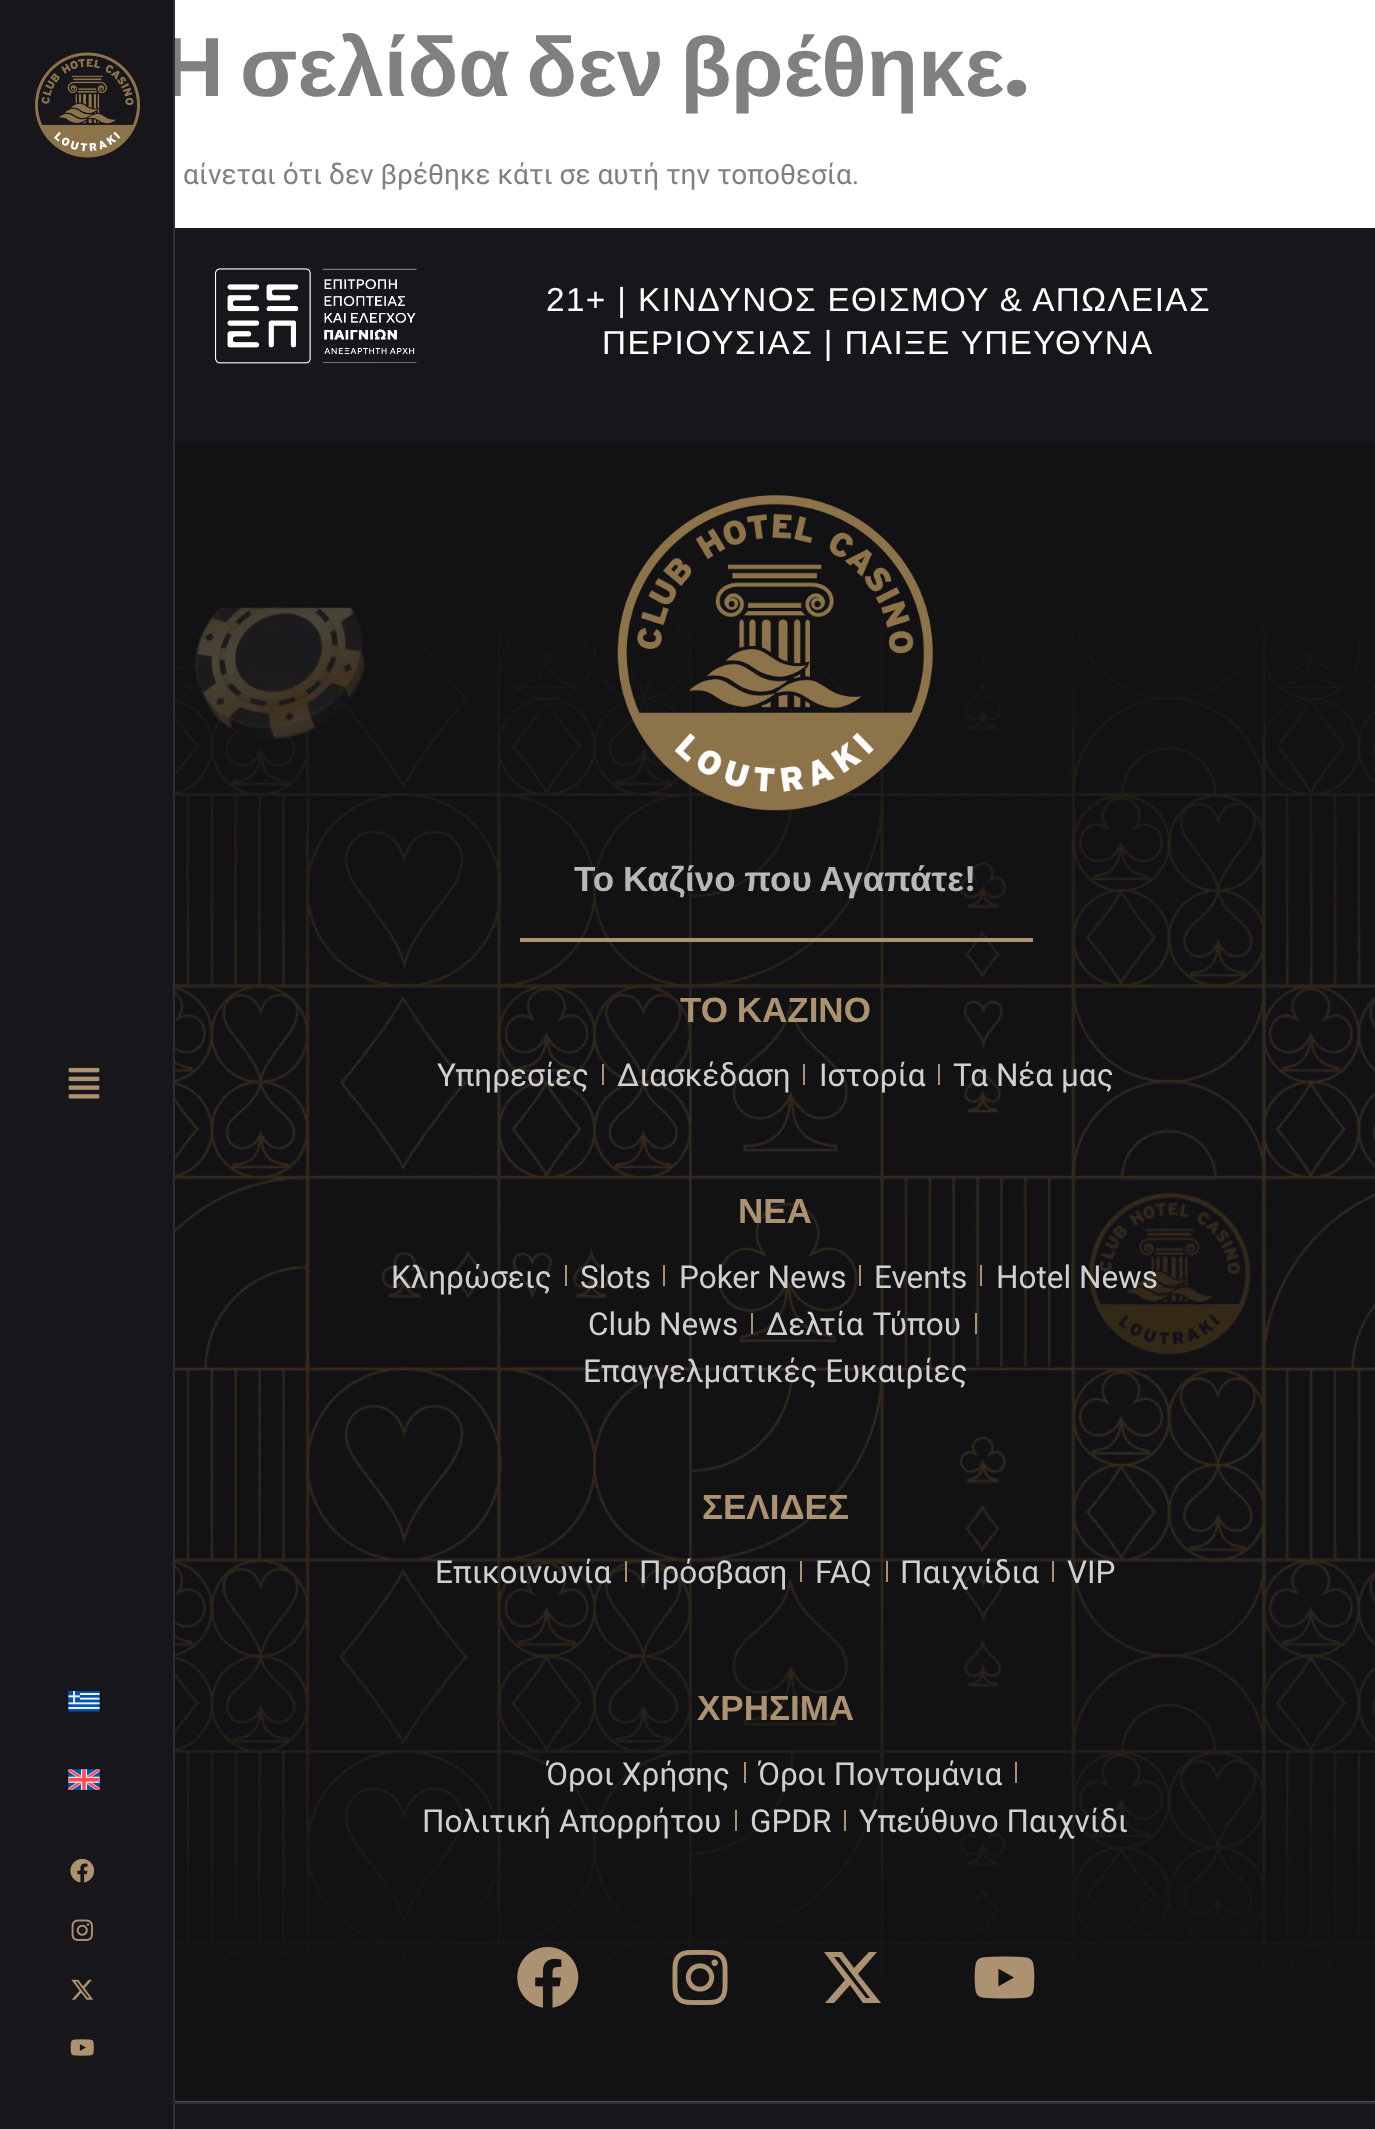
async function draw(canvas) {
  canvas.width = 1375
  canvas.height = 2129
  const ctx = canvas.getContext('2d')
  ctx.miterLimit = 4
  ctx.fontKerning = 'normal'
  async function loadImage(src) {
    const img = new Image()
    img.src = src
    await img.decode()
    return img
  }

  ctx.fillStyle = '#fff'
  ctx.fillRect(0, 0, 1375, 2129)
  ctx.wordSpacing = '-7px'
  ctx.font = 'bold 84px Liberation Sans'
  ctx.fillStyle = '#808080'
  ctx.fillText('Η σελίδα δεν βρέθηκε', 163, 96)
  ctx.fillStyle = '#17161a'
  ctx.fillRect(0, 0, 173, 2129)
  ctx.fillStyle = '#2e2d31'
  ctx.fillRect(173, 0, 2, 2129)
  ctx.drawImage(await loadImage('image0.png'), 35, 52, 105, 106)
  ctx.drawImage(await loadImage('image1.png'), 68, 1067, 32, 32)
  ctx.drawImage(await loadImage('image2.png'), 68, 1691, 32, 21)
  ctx.drawImage(await loadImage('image3.png'), 68, 1769, 32, 21)
  ctx.drawImage(await loadImage('image4.png'), 70, 1859, 25, 24)
  ctx.drawImage(await loadImage('image5.png'), 71, 1919, 22, 22)
  ctx.drawImage(await loadImage('image6.png'), 71, 1979, 23, 21)
  ctx.drawImage(await loadImage('image7.png'), 70, 2039, 24, 17)
  ctx.wordSpacing = '0px'
  ctx.font = '800 84px Poppins'
  ctx.fillStyle = '#808080'
  ctx.fillText('.', 1004, 96)
  ctx.font = '28px Roboto'
  ctx.fillText('αίνεται ότι δεν βρέθηκε κάτι σε αυτή την τοποθεσία.', 183, 184)
  ctx.fillStyle = '#17161a'
  ctx.fillRect(175, 228, 1200, 215)
  ctx.drawImage(await loadImage('image8.png'), 215, 268, 202, 96)
  ctx.letterSpacing = '1.4px'
  ctx.font = '33.25px Liberation Sans'
  ctx.fillStyle = '#fff'
  ctx.fillText('21+ | ΚΙΝΔΥΝΟΣ ΕΘΙΣΜΟΥ & ΑΠΩΛΕΙΑΣ', 546, 311)
  ctx.fillText('ΠΕΡΙΟΥΣΙΑΣ | ΠΑΙΞΕ ΥΠΕΥΘΥΝΑ', 602, 354)
  ctx.drawImage(await loadImage('image9.png'), 175, 442, 1200, 1660)
  ctx.drawImage(await loadImage('image10.png'), 617, 495, 316, 316)
  ctx.letterSpacing = '0px'
  ctx.wordSpacing = '-1px'
  ctx.font = 'bold 35px Liberation Sans'
  ctx.fillStyle = '#b8b8b9'
  ctx.fillText('Το Καζίνο που Αγαπάτε', 574, 891)
  ctx.wordSpacing = '0px'
  ctx.font = '600 35px Poppins'
  ctx.fillText('!', 964, 891)
  ctx.fillStyle = '#ad9271'
  ctx.fillRect(520, 938, 513, 4)
  ctx.wordSpacing = '-1px'
  ctx.font = 'bold 35px Liberation Sans'
  ctx.fillText('ΤΟ ΚΑΖΙΝΟ', 680, 1022)
  ctx.wordSpacing = '0px'
  ctx.font = '31.5px Roboto'
  ctx.fillStyle = '#d1d0d0'
  ctx.fillText('Υπηρεσίες', 437, 1086)
  ctx.fillStyle = '#ad9271'
  ctx.fillRect(602, 1064, 2, 21)
  ctx.fillStyle = '#d1d0d0'
  ctx.fillText('Διασκέδαση', 617, 1086)
  ctx.fillStyle = '#ad9271'
  ctx.fillRect(803, 1064, 2, 21)
  ctx.fillStyle = '#d1d0d0'
  ctx.fillText('Ιστορία', 819, 1086)
  ctx.fillStyle = '#ad9271'
  ctx.fillRect(938, 1064, 2, 21)
  ctx.fillStyle = '#d1d0d0'
  ctx.fillText('Τα Νέα μας', 953, 1086)
  ctx.font = 'bold 35px Liberation Sans'
  ctx.fillStyle = '#ad9271'
  ctx.fillText('ΝΕΑ', 738, 1223)
  ctx.font = '31.5px Roboto'
  ctx.fillStyle = '#d1d0d0'
  ctx.fillText('Κληρώσεις', 391, 1288)
  ctx.fillStyle = '#ad9271'
  ctx.fillRect(565, 1265, 2, 21)
  ctx.fillStyle = '#d1d0d0'
  ctx.fillText('Slots', 580, 1288)
  ctx.fillStyle = '#ad9271'
  ctx.fillRect(663, 1265, 2, 21)
  ctx.fillStyle = '#d1d0d0'
  ctx.fillText('Poker News', 679, 1288)
  ctx.fillStyle = '#ad9271'
  ctx.fillRect(859, 1265, 2, 21)
  ctx.fillStyle = '#d1d0d0'
  ctx.fillText('Events', 874, 1288)
  ctx.fillStyle = '#ad9271'
  ctx.fillRect(980, 1265, 2, 21)
  ctx.fillStyle = '#d1d0d0'
  ctx.fillText('Hotel News', 996, 1288)
  ctx.fillText('Club News', 588, 1335)
  ctx.fillStyle = '#ad9271'
  ctx.fillRect(751, 1313, 2, 21)
  ctx.wordSpacing = '1px'
  ctx.fillStyle = '#d1d0d0'
  ctx.fillText('Δελτία Τύπου', 766, 1335)
  ctx.fillStyle = '#ad9271'
  ctx.fillRect(975, 1313, 2, 21)
  ctx.wordSpacing = '0px'
  ctx.fillStyle = '#d1d0d0'
  ctx.fillText('Επαγγελματικές Ευκαιρίες', 583, 1382)
  ctx.font = 'bold 35px Liberation Sans'
  ctx.fillStyle = '#ad9271'
  ctx.fillText('ΣΕΛΙΔΕΣ', 702, 1519)
  ctx.font = '31.5px Roboto'
  ctx.fillStyle = '#d1d0d0'
  ctx.fillText('Επικοινωνία', 435, 1583)
  ctx.fillStyle = '#ad9271'
  ctx.fillRect(625, 1561, 2, 21)
  ctx.fillStyle = '#d1d0d0'
  ctx.fillText('Πρόσβαση', 639, 1583)
  ctx.fillStyle = '#ad9271'
  ctx.fillRect(800, 1561, 2, 21)
  ctx.fillStyle = '#d1d0d0'
  ctx.fillText('FAQ', 815, 1583)
  ctx.fillStyle = '#ad9271'
  ctx.fillRect(886, 1561, 2, 21)
  ctx.fillStyle = '#d1d0d0'
  ctx.fillText('Παιχνίδια', 900, 1583)
  ctx.fillStyle = '#ad9271'
  ctx.fillRect(1052, 1561, 2, 21)
  ctx.fillStyle = '#d1d0d0'
  ctx.fillText('VIP', 1067, 1583)
  ctx.font = 'bold 35px Liberation Sans'
  ctx.fillStyle = '#ad9271'
  ctx.fillText('ΧΡΗΣΙΜΑ', 697, 1720)
  ctx.font = '31.5px Roboto'
  ctx.fillStyle = '#d1d0d0'
  ctx.fillText('Όροι Χρήσης', 546, 1785)
  ctx.fillStyle = '#ad9271'
  ctx.fillRect(744, 1762, 2, 21)
  ctx.fillStyle = '#d1d0d0'
  ctx.fillText('Όροι Ποντομάνια', 758, 1785)
  ctx.fillStyle = '#ad9271'
  ctx.fillRect(1015, 1762, 2, 21)
  ctx.fillStyle = '#d1d0d0'
  ctx.fillText('Πολιτική Απορρήτου', 422, 1832)
  ctx.fillStyle = '#ad9271'
  ctx.fillRect(735, 1810, 2, 21)
  ctx.fillStyle = '#d1d0d0'
  ctx.fillText('GPDR', 750, 1832)
  ctx.fillStyle = '#ad9271'
  ctx.fillRect(844, 1810, 2, 21)
  ctx.fillStyle = '#d1d0d0'
  ctx.fillText('Υπεύθυνο Παιχνίδι', 859, 1832)
  ctx.drawImage(await loadImage('image11.png'), 517, 1947, 62, 61)
  ctx.drawImage(await loadImage('image12.png'), 672, 1949, 56, 57)
  ctx.fillStyle = '#ad9271'
  ctx.beginPath()
  ctx.moveTo(869, 1952)
  ctx.lineTo(877, 1952)
  ctx.lineTo(858, 1974)
  ctx.lineTo(881, 2003)
  ctx.lineTo(863, 2003)
  ctx.lineTo(850, 1985)
  ctx.lineTo(834, 2003)
  ctx.lineTo(825, 2003)
  ctx.lineTo(845, 1980)
  ctx.lineTo(824, 1952)
  ctx.lineTo(842, 1952)
  ctx.lineTo(854, 1968)
  ctx.closePath()
  ctx.moveTo(866, 1998)
  ctx.lineTo(870, 1998)
  ctx.lineTo(839, 1957)
  ctx.lineTo(834, 1957)
  ctx.closePath()
  ctx.fill()
  ctx.drawImage(await loadImage('image13.png'), 974, 1956, 61, 43)
  ctx.fillStyle = '#17161a'
  ctx.fillRect(175, 2104, 1200, 25)
  ctx.fillStyle = '#2e2d31'
  ctx.fillRect(175, 2102, 1200, 2)
}

draw(document.querySelector('canvas'))
